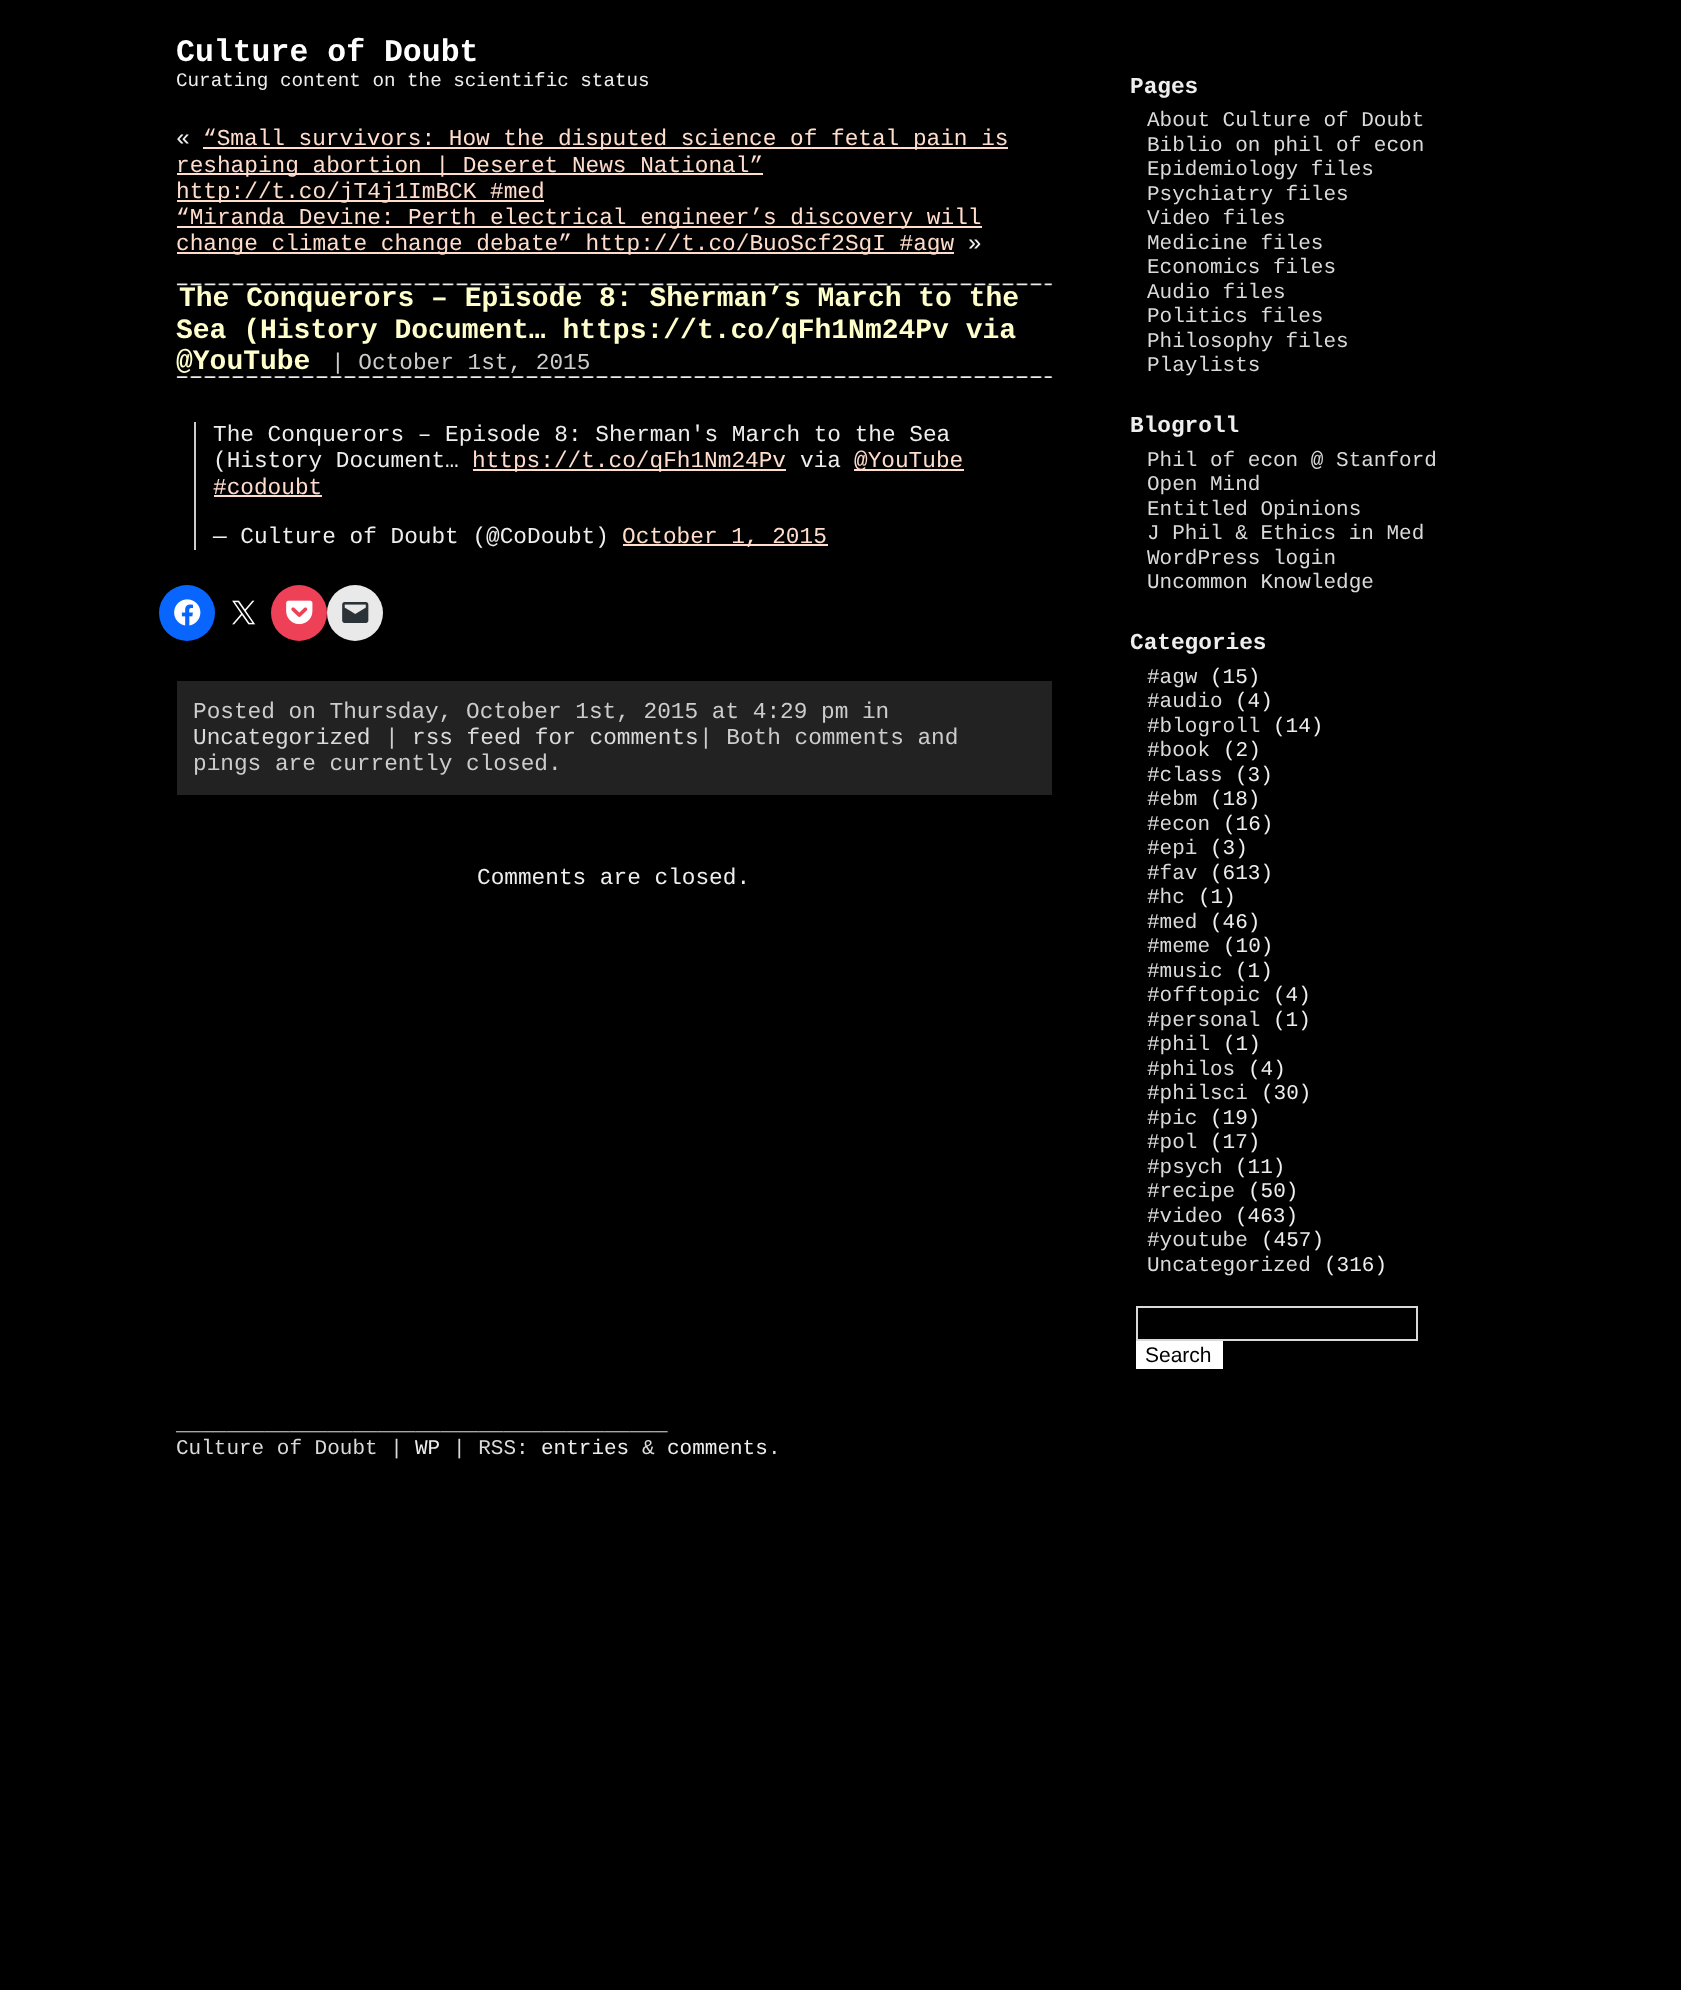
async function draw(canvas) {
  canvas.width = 1681
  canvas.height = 1990
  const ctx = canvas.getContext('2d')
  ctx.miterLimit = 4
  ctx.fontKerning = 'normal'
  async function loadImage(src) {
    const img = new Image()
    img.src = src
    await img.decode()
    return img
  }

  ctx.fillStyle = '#000'
  ctx.fillRect(0, 0, 1681, 1990)
  ctx.font = 'bold 31.5px Liberation Mono'
  ctx.fillStyle = '#fff'
  ctx.fillText('Culture of Doubt', 176, 61)
  ctx.font = '19.25px Liberation Mono'
  ctx.fillStyle = '#eee'
  ctx.fillText('Curating content on the scientific status', 176, 86)
  ctx.font = '22.75px Liberation Mono'
  ctx.fillText('«', 176, 145)
  ctx.fillStyle = '#fdc'
  ctx.fillRect(203, 147, 805, 2)
  ctx.fillText('“Small survivors: How the disputed science of fetal pain is', 203, 145)
  ctx.fillRect(177, 173, 586, 2)
  ctx.fillText('reshaping abortion | Deseret News National”', 176, 172)
  ctx.fillRect(177, 200, 367, 2)
  ctx.fillText('http://t.co/jT4j1ImBCK #med', 176, 198)
  ctx.fillRect(177, 226, 805, 2)
  ctx.fillText('“Miranda Devine: Perth electrical engineer’s discovery will', 176, 224)
  ctx.fillRect(177, 252, 777, 2)
  ctx.fillText('change climate change debate” http://t.co/BuoScf2SgI #agw', 176, 250)
  ctx.fillStyle = '#eee'
  ctx.fillText('»', 968, 250)
  ctx.drawImage(await loadImage('image0.png'), 176, 283, 876, 3)
  ctx.drawImage(await loadImage('image1.png'), 176, 376, 876, 2)
  ctx.font = 'bold 28px Liberation Mono'
  ctx.fillStyle = '#ffc'
  ctx.fillText('The Conquerors – Episode 8: Sherman’s March to the', 179, 306)
  ctx.fillText('Sea (History Document… https://t.co/qFh1Nm24Pv via', 176, 338)
  ctx.fillText('@YouTube', 176, 369)
  ctx.font = '22.75px Liberation Mono'
  ctx.fillStyle = '#ccc'
  ctx.fillText('| October 1st, 2015', 331, 369)
  ctx.fillRect(194, 422, 2, 128)
  ctx.fillStyle = '#eee'
  ctx.fillText('The Conquerors – Episode 8: Sherman\'s March to the Sea', 213, 441)
  ctx.fillText('(History Document…', 213, 467)
  ctx.fillStyle = '#fdc'
  ctx.fillRect(473, 469, 313, 2)
  ctx.fillText('https://t.co/qFh1Nm24Pv', 472, 467)
  ctx.fillStyle = '#eee'
  ctx.fillText('via', 800, 467)
  ctx.fillStyle = '#fdc'
  ctx.fillRect(854, 469, 110, 2)
  ctx.fillText('@YouTube', 854, 467)
  ctx.fillText('#codoubt', 213, 494)
  ctx.fillRect(214, 495, 108, 2)
  ctx.fillStyle = '#eee'
  ctx.fillText('— Culture of Doubt (@CoDoubt)', 213, 543)
  ctx.fillStyle = '#fdc'
  ctx.fillRect(623, 544, 205, 2)
  ctx.fillText('October 1, 2015', 622, 543)
  ctx.fillStyle = '#0866ff'
  ctx.beginPath()
  ctx.arc(187, 613, 28, 0, 2 * Math.PI)
  ctx.fill()
  ctx.drawImage(await loadImage('image2.png'), 174, 599, 27, 27)
  ctx.drawImage(await loadImage('image3.png'), 232, 600, 24, 25)
  ctx.fillStyle = '#ee4056'
  ctx.beginPath()
  ctx.arc(299, 613, 28, 0, 2 * Math.PI)
  ctx.fill()
  ctx.drawImage(await loadImage('image4.png'), 286, 600, 27, 25)
  ctx.fillStyle = '#e9e9e9'
  ctx.beginPath()
  ctx.arc(355, 613, 28, 0, 2 * Math.PI)
  ctx.fill()
  ctx.drawImage(await loadImage('image5.png'), 342, 602, 27, 21)
  ctx.fillStyle = '#222'
  ctx.fillRect(177, 681, 875, 114)
  ctx.fillStyle = '#ccc'
  ctx.fillText('Posted on Thursday, October 1st, 2015 at 4:29 pm in', 193, 718)
  ctx.fillStyle = '#dadada'
  ctx.fillText('Uncategorized', 193, 744)
  ctx.fillStyle = '#ccc'
  ctx.fillText('|', 385, 744)
  ctx.fillStyle = '#dadada'
  ctx.fillText('rss feed for comments', 412, 744)
  ctx.fillStyle = '#ccc'
  ctx.fillText('| Both comments and', 699, 744)
  ctx.fillText('pings are currently closed.', 193, 770)
  ctx.fillStyle = '#eee'
  ctx.fillText('Comments are closed.', 477, 884)
  ctx.font = 'bold 22.75px Liberation Mono'
  ctx.fillText('Pages', 1130, 93)
  ctx.font = '21px Liberation Mono'
  ctx.fillStyle = '#dadada'
  ctx.fillText('About Culture of Doubt', 1147, 126)
  ctx.fillText('Biblio on phil of econ', 1147, 151)
  ctx.fillText('Epidemiology files', 1147, 175)
  ctx.fillText('Psychiatry files', 1147, 200)
  ctx.fillText('Video files', 1147, 224)
  ctx.fillText('Medicine files', 1147, 249)
  ctx.fillText('Economics files', 1147, 273)
  ctx.fillText('Audio files', 1147, 298)
  ctx.fillText('Politics files', 1147, 322)
  ctx.fillText('Philosophy files', 1147, 347)
  ctx.fillText('Playlists', 1147, 371)
  ctx.font = 'bold 22.75px Liberation Mono'
  ctx.fillStyle = '#eee'
  ctx.fillText('Blogroll', 1130, 432)
  ctx.font = '21px Liberation Mono'
  ctx.fillStyle = '#dadada'
  ctx.fillText('Phil of econ @ Stanford', 1147, 466)
  ctx.fillText('Open Mind', 1147, 490)
  ctx.fillText('Entitled Opinions', 1147, 515)
  ctx.fillText('J Phil & Ethics in Med', 1147, 539)
  ctx.fillText('WordPress login', 1147, 564)
  ctx.fillText('Uncommon Knowledge', 1147, 588)
  ctx.font = 'bold 22.75px Liberation Mono'
  ctx.fillStyle = '#eee'
  ctx.fillText('Categories', 1130, 649)
  ctx.font = '21px Liberation Mono'
  ctx.fillStyle = '#dadada'
  ctx.fillText('#agw', 1147, 683)
  ctx.fillStyle = '#eee'
  ctx.fillText('(15)', 1210, 683)
  ctx.fillStyle = '#dadada'
  ctx.fillText('#audio', 1147, 707)
  ctx.fillStyle = '#eee'
  ctx.fillText('(4)', 1235, 707)
  ctx.fillStyle = '#dadada'
  ctx.fillText('#blogroll', 1147, 732)
  ctx.fillStyle = '#eee'
  ctx.fillText('(14)', 1273, 732)
  ctx.fillStyle = '#dadada'
  ctx.fillText('#book', 1147, 756)
  ctx.fillStyle = '#eee'
  ctx.fillText('(2)', 1223, 756)
  ctx.fillStyle = '#dadada'
  ctx.fillText('#class', 1147, 781)
  ctx.fillStyle = '#eee'
  ctx.fillText('(3)', 1235, 781)
  ctx.fillStyle = '#dadada'
  ctx.fillText('#ebm', 1147, 805)
  ctx.fillStyle = '#eee'
  ctx.fillText('(18)', 1210, 805)
  ctx.fillStyle = '#dadada'
  ctx.fillText('#econ', 1147, 830)
  ctx.fillStyle = '#eee'
  ctx.fillText('(16)', 1223, 830)
  ctx.fillStyle = '#dadada'
  ctx.fillText('#epi', 1147, 854)
  ctx.fillStyle = '#eee'
  ctx.fillText('(3)', 1210, 854)
  ctx.fillStyle = '#dadada'
  ctx.fillText('#fav', 1147, 879)
  ctx.fillStyle = '#eee'
  ctx.fillText('(613)', 1210, 879)
  ctx.fillStyle = '#dadada'
  ctx.fillText('#hc', 1147, 903)
  ctx.fillStyle = '#eee'
  ctx.fillText('(1)', 1198, 903)
  ctx.fillStyle = '#dadada'
  ctx.fillText('#med', 1147, 928)
  ctx.fillStyle = '#eee'
  ctx.fillText('(46)', 1210, 928)
  ctx.fillStyle = '#dadada'
  ctx.fillText('#meme', 1147, 952)
  ctx.fillStyle = '#eee'
  ctx.fillText('(10)', 1223, 952)
  ctx.fillStyle = '#dadada'
  ctx.fillText('#music', 1147, 977)
  ctx.fillStyle = '#eee'
  ctx.fillText('(1)', 1235, 977)
  ctx.fillStyle = '#dadada'
  ctx.fillText('#offtopic', 1147, 1001)
  ctx.fillStyle = '#eee'
  ctx.fillText('(4)', 1273, 1001)
  ctx.fillStyle = '#dadada'
  ctx.fillText('#personal', 1147, 1026)
  ctx.fillStyle = '#eee'
  ctx.fillText('(1)', 1273, 1026)
  ctx.fillStyle = '#dadada'
  ctx.fillText('#phil', 1147, 1050)
  ctx.fillStyle = '#eee'
  ctx.fillText('(1)', 1223, 1050)
  ctx.fillStyle = '#dadada'
  ctx.fillText('#philos', 1147, 1075)
  ctx.fillStyle = '#eee'
  ctx.fillText('(4)', 1248, 1075)
  ctx.fillStyle = '#dadada'
  ctx.fillText('#philsci', 1147, 1099)
  ctx.fillStyle = '#eee'
  ctx.fillText('(30)', 1261, 1099)
  ctx.fillStyle = '#dadada'
  ctx.fillText('#pic', 1147, 1124)
  ctx.fillStyle = '#eee'
  ctx.fillText('(19)', 1210, 1124)
  ctx.fillStyle = '#dadada'
  ctx.fillText('#pol', 1147, 1148)
  ctx.fillStyle = '#eee'
  ctx.fillText('(17)', 1210, 1148)
  ctx.fillStyle = '#dadada'
  ctx.fillText('#psych', 1147, 1173)
  ctx.fillStyle = '#eee'
  ctx.fillText('(11)', 1235, 1173)
  ctx.fillStyle = '#dadada'
  ctx.fillText('#recipe', 1147, 1197)
  ctx.fillStyle = '#eee'
  ctx.fillText('(50)', 1248, 1197)
  ctx.fillStyle = '#dadada'
  ctx.fillText('#video', 1147, 1222)
  ctx.fillStyle = '#eee'
  ctx.fillText('(463)', 1235, 1222)
  ctx.fillStyle = '#dadada'
  ctx.fillText('#youtube', 1147, 1246)
  ctx.fillStyle = '#eee'
  ctx.fillText('(457)', 1261, 1246)
  ctx.fillStyle = '#dadada'
  ctx.fillText('Uncategorized', 1147, 1271)
  ctx.fillStyle = '#eee'
  ctx.fillText('(316)', 1324, 1271)
  ctx.strokeStyle = '#dadada'
  ctx.lineWidth = 2
  ctx.strokeRect(1137, 1307, 280, 33)
  ctx.fillStyle = '#fff'
  ctx.fillRect(1136, 1341, 87, 28)
  ctx.font = '21px Liberation Sans'
  ctx.fillStyle = '#000'
  ctx.fillText('Search', 1145, 1362)
  ctx.font = '21px Liberation Mono'
  ctx.fillStyle = '#dadada'
  ctx.fillText('_______________________________________', 176, 1430)
  ctx.fillText('Culture of Doubt |', 176, 1454)
  ctx.fillStyle = '#eee'
  ctx.fillText('WP', 415, 1454)
  ctx.fillStyle = '#dadada'
  ctx.fillText('| RSS:', 453, 1454)
  ctx.fillStyle = '#eee'
  ctx.fillText('entries', 541, 1454)
  ctx.fillStyle = '#dadada'
  ctx.fillText('&', 642, 1454)
  ctx.fillStyle = '#eee'
  ctx.fillText('comments', 667, 1454)
  ctx.fillStyle = '#dadada'
  ctx.fillText('.', 768, 1454)
}

draw(document.querySelector('canvas'))
